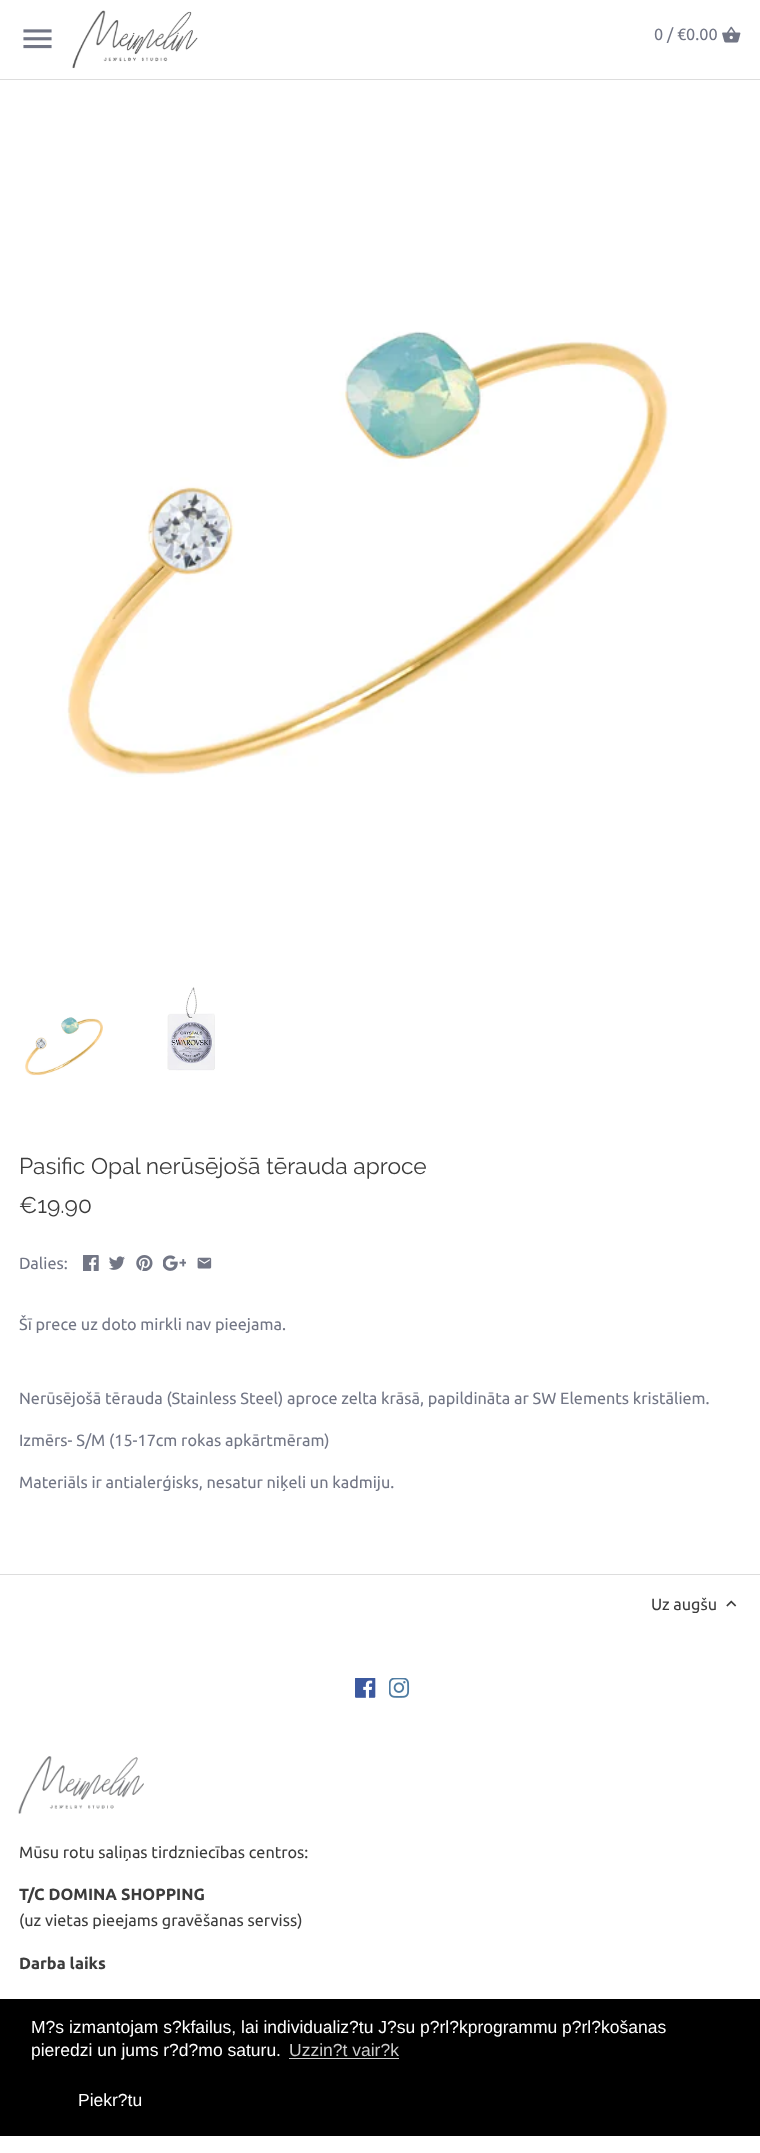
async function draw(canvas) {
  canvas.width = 760
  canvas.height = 2153
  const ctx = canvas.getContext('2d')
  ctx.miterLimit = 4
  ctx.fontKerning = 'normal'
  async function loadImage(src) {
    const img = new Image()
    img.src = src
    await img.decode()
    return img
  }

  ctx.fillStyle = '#fff'
  ctx.fillRect(0, 0, 760, 2153)
  ctx.fillStyle = '#ddd'
  ctx.fillRect(0, 79, 760, 1)
  ctx.drawImage(await loadImage('image0.png'), 23, 29, 29, 20)
  ctx.drawImage(await loadImage('image1.png'), 72, 10, 126, 59)
  ctx.font = '16.25px Ubuntu'
  ctx.fillStyle = '#727685'
  ctx.fillText('0 / €0.00', 654, 40)
  ctx.drawImage(await loadImage('image2.png'), 722, 26, 19, 17)
  ctx.drawImage(await loadImage('image3.png'), 62, 331, 610, 446)
  ctx.drawImage(await loadImage('image4.png'), 25, 1017, 78, 59)
  ctx.drawImage(await loadImage('image5.png'), 167, 987, 48, 84)
  ctx.font = '22.75px Raleway'
  ctx.fillStyle = '#3c3c3c'
  ctx.fillText('Pasific Opal nerūsējošā tērauda aproce', 19, 1174)
  ctx.fillText('€19.90', 19, 1213)
  ctx.font = '16.25px Ubuntu'
  ctx.fillStyle = '#727685'
  ctx.fillText('Dalies:', 19, 1269)
  ctx.drawImage(await loadImage('image6.png'), 83, 1255, 16, 16)
  ctx.drawImage(await loadImage('image7.png'), 109, 1256, 16, 14)
  ctx.drawImage(await loadImage('image8.png'), 136, 1255, 17, 16)
  ctx.drawImage(await loadImage('image9.png'), 163, 1255, 23, 16)
  ctx.drawImage(await loadImage('image10.png'), 197, 1257, 15, 12)
  ctx.fillText('Šī prece uz doto mirkli nav pieejama.', 19, 1330)
  ctx.fillText('Nerūsējošā tērauda (Stainless Steel) aproce zelta krāsā, papildināta ar SW Elements kristāliem.', 19, 1404)
  ctx.fillText('Izmērs- S/M (15-17cm rokas apkārtmēram)', 19, 1446)
  ctx.fillText('Materiāls ir antialerģisks, nesatur niķeli un kadmiju.', 19, 1488)
  ctx.fillStyle = '#ddd'
  ctx.fillRect(0, 1574, 760, 1)
  ctx.fillStyle = '#3c3c3c'
  ctx.fillText('Uz augšu', 651, 1610)
  ctx.drawImage(await loadImage('image11.png'), 726, 1600, 11, 7)
  ctx.drawImage(await loadImage('image12.png'), 355, 1678, 21, 20)
  ctx.drawImage(await loadImage('image13.png'), 389, 1678, 21, 20)
  ctx.drawImage(await loadImage('image14.png'), 18, 1756, 126, 58)
  ctx.fillText('Mūsu rotu saliņas tirdzniecības centros:', 19, 1858)
  ctx.font = 'bold 16.25px Ubuntu'
  ctx.fillText('T/C DOMINA SHOPPING', 19, 1900)
  ctx.font = '16.25px Ubuntu'
  ctx.fillText('(uz vietas pieejams gravēšanas serviss)', 19, 1926)
  ctx.font = 'bold 16.25px Ubuntu'
  ctx.fillText('Darba laiks', 19, 1969)
  ctx.fillStyle = '#000'
  ctx.fillRect(0, 1999, 760, 137)
  ctx.font = '17.5px Liberation Sans'
  ctx.fillStyle = '#fff'
  ctx.fillText('M?s izmantojam s?kfailus, lai individualiz?tu J?su p?rl?kprogrammu p?rl?košanas', 31, 2033)
  ctx.fillText('pieredzi un jums r?d?mo saturu.', 31, 2056)
  ctx.fillStyle = '#ccc'
  ctx.fillText('Uzzin?t vair?k', 289, 2056)
  ctx.fillRect(289, 2058, 110, 1)
  ctx.fillStyle = '#fff'
  ctx.fillText('Piekr?tu', 78, 2106)
}

draw(document.querySelector('canvas'))
